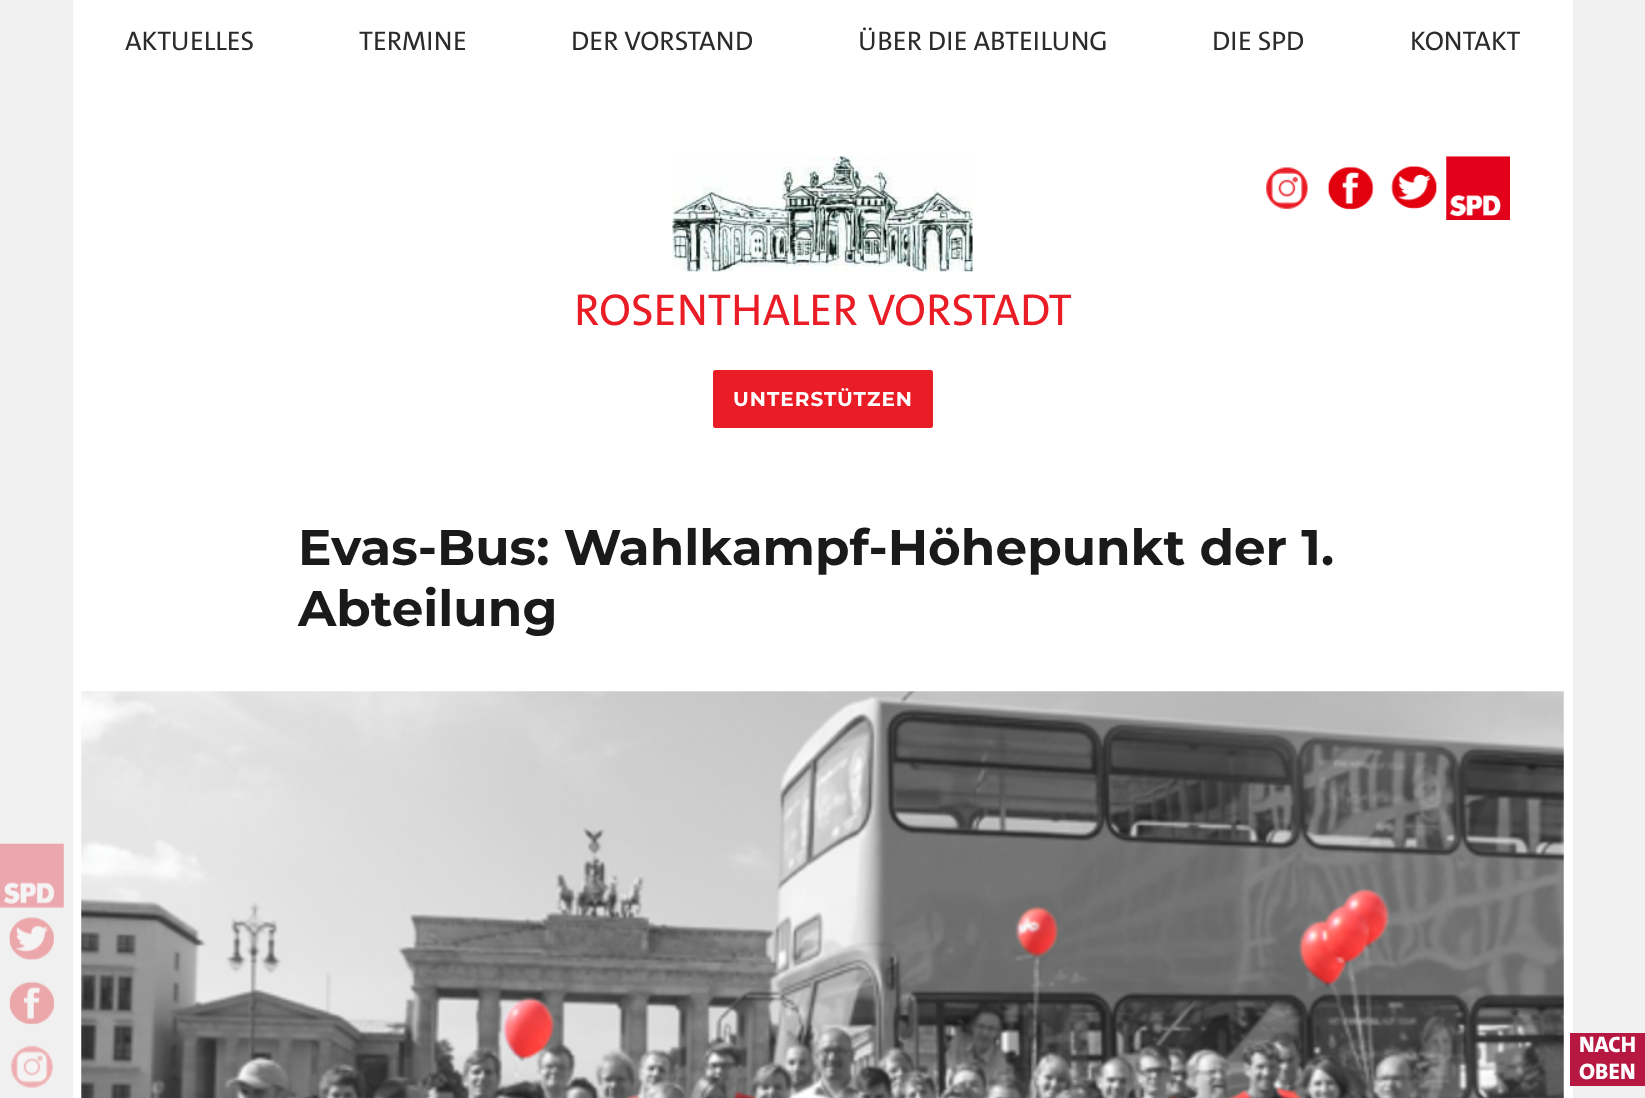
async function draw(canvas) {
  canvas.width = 1645
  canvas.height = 1098
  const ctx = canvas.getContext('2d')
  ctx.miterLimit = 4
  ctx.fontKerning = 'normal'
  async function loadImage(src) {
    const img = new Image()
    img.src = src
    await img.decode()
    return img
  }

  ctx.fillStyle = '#f1f0f0'
  ctx.fillRect(0, 0, 1645, 1098)
  ctx.drawImage(await loadImage('image0.png'), 0, 843, 64, 65)
  ctx.drawImage(await loadImage('image1.png'), 9, 917, 45, 43)
  ctx.drawImage(await loadImage('image2.png'), 9, 981, 46, 44)
  ctx.drawImage(await loadImage('image3.png'), 11, 1045, 42, 43)
  ctx.fillStyle = '#fff'
  ctx.fillRect(73, 0, 1500, 1098)
  ctx.font = '27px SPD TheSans'
  ctx.fillStyle = '#2b2b2b'
  ctx.fillText('AKTUELLES', 125, 50)
  ctx.fillText('TERMINE', 359, 50)
  ctx.fillText('DER VORSTAND', 571, 50)
  ctx.fillText('ÜBER DIE ABTEILUNG', 858, 50)
  ctx.fillText('DIE SPD', 1212, 50)
  ctx.fillText('KONTAKT', 1410, 50)
  ctx.drawImage(await loadImage('image4.png'), 672, 156, 301, 116)
  ctx.drawImage(await loadImage('image5.png'), 1266, 167, 42, 42)
  ctx.drawImage(await loadImage('image6.png'), 1327, 166, 47, 44)
  ctx.drawImage(await loadImage('image7.png'), 1391, 165, 46, 44)
  ctx.drawImage(await loadImage('image8.png'), 1446, 156, 64, 64)
  ctx.font = '45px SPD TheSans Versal'
  ctx.fillStyle = '#ea1c25'
  ctx.fillText('ROSENTHALER VORSTADT', 574, 325)
  ctx.beginPath()
  ctx.roundRect(714.5, 371.5, 217, 55, 1)
  ctx.fill()
  ctx.strokeStyle = '#ea1c25'
  ctx.lineWidth = 3
  ctx.stroke()
  ctx.letterSpacing = '1px'
  ctx.font = '100 20px Montserrat'
  ctx.fillStyle = '#fff'
  ctx.fillText('UNTERSTÜTZEN', 733, 406)
  ctx.letterSpacing = '0px'
  ctx.font = '100 50px Montserrat'
  ctx.fillStyle = '#1a1a1a'
  ctx.fillText('Evas-Bus: Wahlkampf-Höhepunkt der 1.', 298, 565)
  ctx.fillText('Abteilung', 298, 626)
  ctx.drawImage(await loadImage('image9.png'), 81, 691, 1483, 407)
  ctx.fillStyle = '#b61842'
  ctx.fillRect(1570, 1033, 75, 53)
  ctx.font = '800 22.5px SPD TheSans'
  ctx.fillStyle = '#fff'
  ctx.fillText('NACH', 1579, 1052)
  ctx.fillText('OBEN', 1579, 1079)
}

draw(document.querySelector('canvas'))
